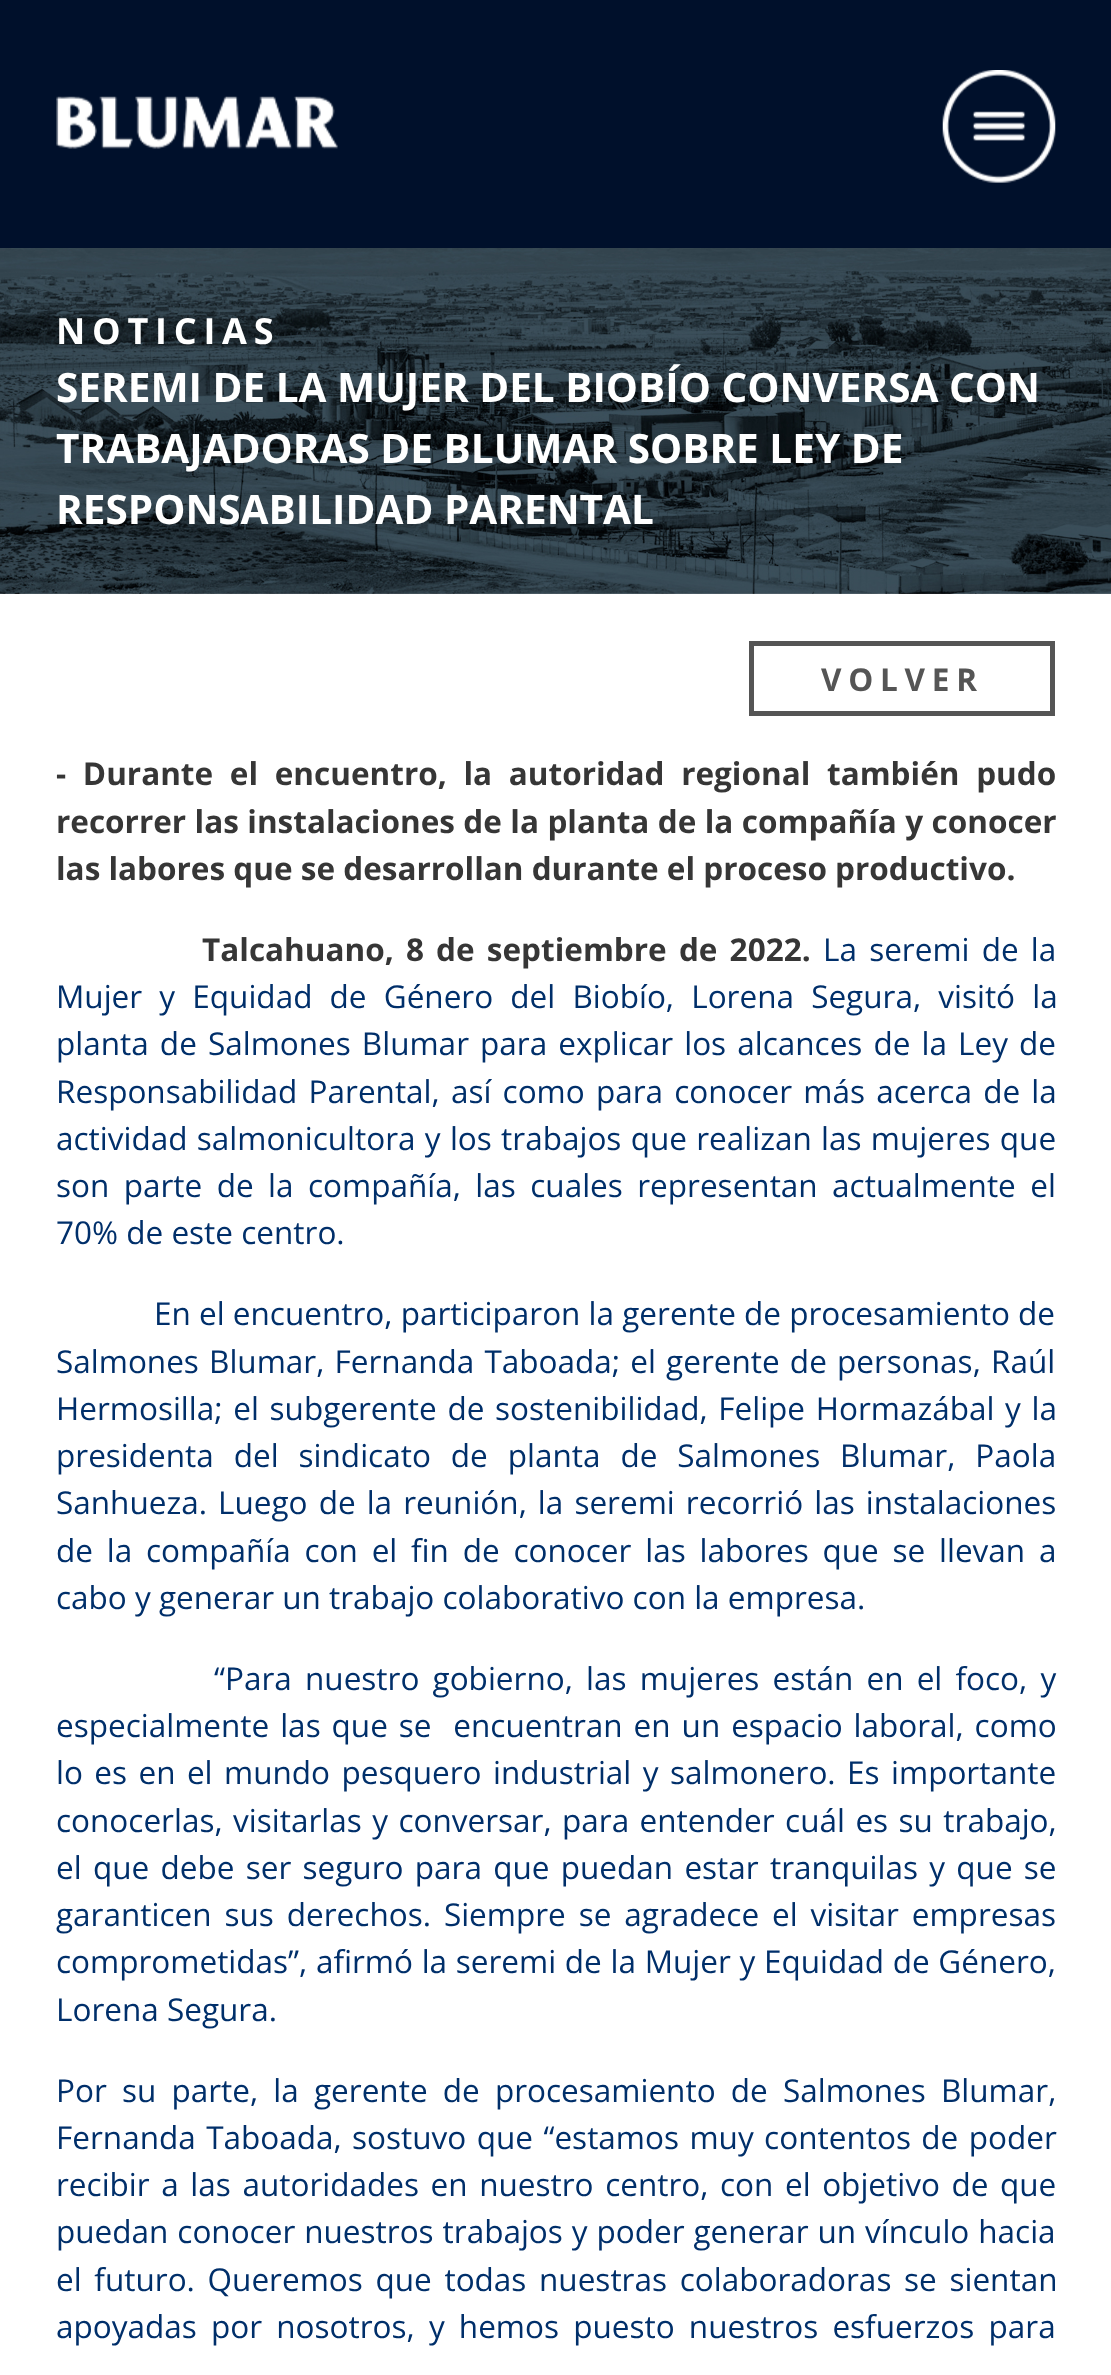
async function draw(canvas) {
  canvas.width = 1111
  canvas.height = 2375
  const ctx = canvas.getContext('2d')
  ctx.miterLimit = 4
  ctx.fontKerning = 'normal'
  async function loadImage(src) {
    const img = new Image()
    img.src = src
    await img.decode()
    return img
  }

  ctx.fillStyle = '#fff'
  ctx.fillRect(0, 0, 1111, 2375)
  ctx.fillStyle = '#00102b'
  ctx.fillRect(0, 0, 1111, 248)
  ctx.drawImage(await loadImage('image0.png'), 56, 96, 282, 53)
  ctx.drawImage(await loadImage('image1.png'), 942, 70, 114, 113)
  ctx.drawImage(await loadImage('image2.png'), 0, 248, 1111, 346)
  ctx.letterSpacing = '6.75px'
  ctx.font = 'bold 36px Open Sans'
  ctx.fillStyle = '#fff'
  ctx.fillText('NOTICIAS', 56, 344)
  ctx.letterSpacing = '0px'
  ctx.font = 'bold 40.5px Open Sans'
  ctx.fillText('SEREMI DE LA MUJER DEL BIOBÍO CONVERSA CON', 56, 402)
  ctx.fillText('TRABAJADORAS DE BLUMAR SOBRE LEY DE', 56, 463)
  ctx.fillText('RESPONSABILIDAD PARENTAL', 56, 524)
  ctx.strokeStyle = '#555'
  ctx.lineWidth = 5
  ctx.strokeRect(751.5, 643.5, 301, 70)
  ctx.letterSpacing = '6.75px'
  ctx.font = 'bold 31.5px Open Sans'
  ctx.fillStyle = '#555'
  ctx.fillText('VOLVER', 821, 691)
  ctx.letterSpacing = '0px'
  ctx.wordSpacing = '8.5px'
  ctx.fillStyle = '#363636'
  ctx.fillText('- Durante el encuentro, la autoridad regional también pudo', 56, 785)
  ctx.wordSpacing = '0.25px'
  ctx.fillText('recorrer las instalaciones de la planta de la compañía y conocer', 56, 833)
  ctx.wordSpacing = '0px'
  ctx.fillText('las labores que se desarrollan durante el proceso productivo.', 56, 880)
  ctx.wordSpacing = '4px'
  ctx.fillText('Talcahuano, 8 de septiembre de 2022.', 202, 961)
  ctx.font = '31.5px Open Sans'
  ctx.fillStyle = '#002f6a'
  ctx.fillText('La seremi de la', 823, 961)
  ctx.wordSpacing = '9px'
  ctx.fillText('Mujer y Equidad de Género del Biobío, Lorena Segura, visitó la', 56, 1008)
  ctx.wordSpacing = '2.9px'
  ctx.fillText('planta de Salmones Blumar para explicar los alcances de la Ley de', 56, 1055)
  ctx.wordSpacing = '3px'
  ctx.fillText('Responsabilidad Parental, así como para conocer más acerca de la', 56, 1103)
  ctx.wordSpacing = '1.1px'
  ctx.fillText('actividad salmonicultora y los trabajos que realizan las mujeres que', 56, 1150)
  ctx.wordSpacing = '6.25px'
  ctx.fillText('son parte de la compañía, las cuales representan actualmente el', 56, 1197)
  ctx.wordSpacing = '0px'
  ctx.fillText('70% de este centro.', 56, 1244)
  ctx.fillText('En el encuentro, participaron la gerente de procesamiento de', 154, 1325)
  ctx.wordSpacing = '2px'
  ctx.fillText('Salmones Blumar, Fernanda Taboada; el gerente de personas, Raúl', 56, 1373)
  ctx.wordSpacing = '2.5px'
  ctx.fillText('Hermosilla; el subgerente de sostenibilidad, Felipe Hormazábal y la', 56, 1420)
  ctx.wordSpacing = '11.75px'
  ctx.fillText('presidenta del sindicato de planta de Salmones Blumar, Paola', 56, 1467)
  ctx.wordSpacing = '2.9px'
  ctx.fillText('Sanhueza. Luego de la reunión, la seremi recorrió las instalaciones', 56, 1514)
  ctx.wordSpacing = '5.6px'
  ctx.fillText('de la compañía con el fin de conocer las labores que se llevan a', 56, 1562)
  ctx.wordSpacing = '0px'
  ctx.fillText('cabo y generar un trabajo colaborativo con la empresa.', 56, 1609)
  ctx.wordSpacing = '5px'
  ctx.fillText('“Para nuestro gobierno, las mujeres están en el foco, y', 214, 1690)
  ctx.wordSpacing = '2.75px'
  ctx.fillText('especialmente las que se  encuentran en un espacio laboral, como', 56, 1737)
  ctx.wordSpacing = '3.25px'
  ctx.fillText('lo es en el mundo pesquero industrial y salmonero. Es importante', 56, 1784)
  ctx.wordSpacing = '2.25px'
  ctx.fillText('conocerlas, visitarlas y conversar, para entender cuál es su trabajo,', 56, 1832)
  ctx.wordSpacing = '3.1px'
  ctx.fillText('el que debe ser seguro para que puedan estar tranquilas y que se', 56, 1879)
  ctx.wordSpacing = '4.75px'
  ctx.fillText('garanticen sus derechos. Siempre se agradece el visitar empresas', 56, 1926)
  ctx.wordSpacing = '0.5px'
  ctx.fillText('comprometidas”, afirmó la seremi de la Mujer y Equidad de Género,', 56, 1973)
  ctx.wordSpacing = '0px'
  ctx.fillText('Lorena Segura.', 56, 2021)
  ctx.wordSpacing = '7px'
  ctx.fillText('Por su parte, la gerente de procesamiento de Salmones Blumar,', 56, 2102)
  ctx.wordSpacing = '2.25px'
  ctx.fillText('Fernanda Taboada, sostuvo que “estamos muy contentos de poder', 56, 2149)
  ctx.wordSpacing = '3.4px'
  ctx.fillText('recibir a las autoridades en nuestro centro, con el objetivo de que', 56, 2196)
  ctx.wordSpacing = '0.75px'
  ctx.fillText('puedan conocer nuestros trabajos y poder generar un vínculo hacia', 56, 2243)
  ctx.wordSpacing = '4.5px'
  ctx.fillText('el futuro. Queremos que todas nuestras colaboradoras se sientan', 56, 2291)
  ctx.wordSpacing = '6px'
  ctx.fillText('apoyadas por nosotros, y hemos puesto nuestros esfuerzos para', 56, 2338)
}

draw(document.querySelector('canvas'))
